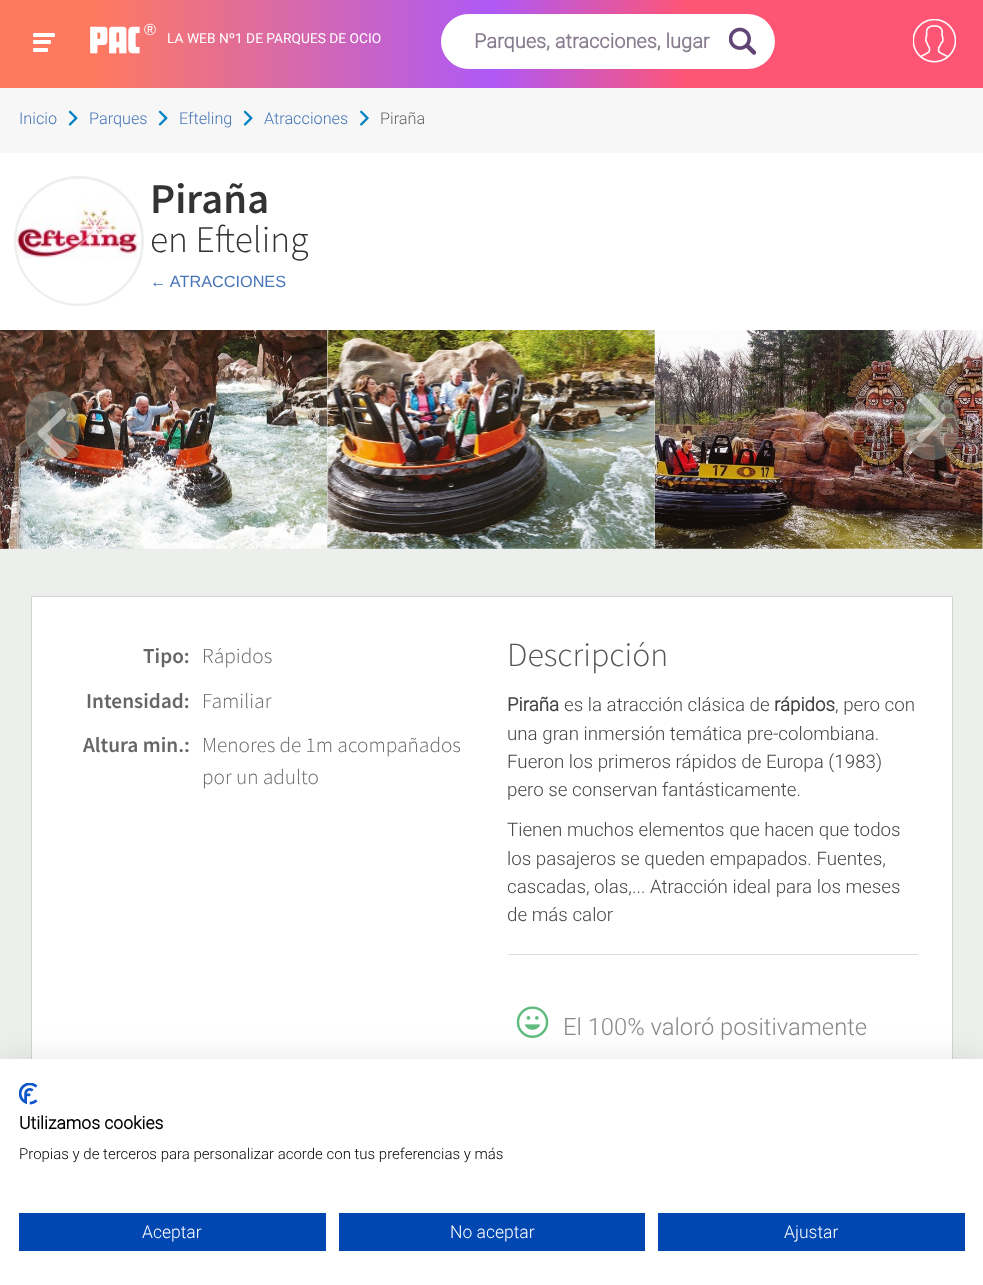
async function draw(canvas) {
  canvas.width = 983
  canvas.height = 1285
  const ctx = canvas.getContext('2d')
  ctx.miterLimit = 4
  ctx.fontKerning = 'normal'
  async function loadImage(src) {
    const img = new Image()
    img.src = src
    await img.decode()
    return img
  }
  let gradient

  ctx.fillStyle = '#edefed'
  ctx.fillRect(0, 0, 983, 1285)
  gradient = ctx.createLinearGradient(0, 44, 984, 44)
  gradient.addColorStop(0.1, '#ff7961')
  gradient.addColorStop(0.5, '#ae59f6')
  gradient.addColorStop(0.7, '#ff5574')
  ctx.fillStyle = gradient
  ctx.fillRect(0, 0, 983, 88)
  ctx.drawImage(await loadImage('image0.png'), 90, 26, 50, 28)
  ctx.font = '16.25px Liberation Sans'
  ctx.fillStyle = '#fff'
  ctx.fillText('®', 144, 35)
  ctx.drawImage(await loadImage('image1.png'), 913, 19, 43, 44)
  ctx.beginPath()
  ctx.roundRect(33, 33, 22, 4, 1)
  ctx.fill()
  ctx.beginPath()
  ctx.roundRect(33, 40, 18, 4, 1)
  ctx.fill()
  ctx.beginPath()
  ctx.roundRect(33, 48, 15, 4, 1)
  ctx.fill()
  ctx.font = '13.75px Roboto'
  ctx.fillText('LA WEB Nº1 DE PARQUES DE OCIO', 167, 43)
  ctx.beginPath()
  ctx.roundRect(441.5, 14.5, 294, 54, [27, 0, 0, 27])
  ctx.fill()
  ctx.strokeStyle = '#fff'
  ctx.stroke()
  ctx.font = 'bold 20px Roboto'
  ctx.fillStyle = '#887d8f'
  ctx.fillText('Parques, atracciones, lugar', 474, 48)
  ctx.fillStyle = '#fff'
  ctx.beginPath()
  ctx.roundRect(710, 14, 65, 55, [0, 27.5, 27.5, 0])
  ctx.fill()
  ctx.drawImage(await loadImage('image2.png'), 729, 27, 27, 28)
  ctx.fillStyle = '#f7f7f7'
  ctx.fillRect(0, 88, 983, 65)
  ctx.font = '300 16.25px Roboto'
  ctx.fillStyle = '#4676b8'
  ctx.fillText('Inicio', 19, 124)
  ctx.drawImage(await loadImage('image3.png'), 68, 110, 10, 16)
  ctx.fillText('Parques', 89, 124)
  ctx.drawImage(await loadImage('image3.png'), 158, 110, 10, 16)
  ctx.fillText('Efteling', 179, 124)
  ctx.drawImage(await loadImage('image3.png'), 243, 110, 10, 16)
  ctx.fillText('Atracciones', 264, 124)
  ctx.drawImage(await loadImage('image4.png'), 360, 110, 9, 16)
  ctx.fillStyle = '#666'
  ctx.fillText('Piraña', 380, 124)
  ctx.fillStyle = '#fff'
  ctx.fillRect(0, 153, 983, 177)
  ctx.beginPath()
  ctx.arc(79, 241, 63.5, 0, 2 * Math.PI)
  ctx.strokeStyle = '#edefed'
  ctx.lineWidth = 3
  ctx.stroke()
  ctx.drawImage(await loadImage('image5.png'), 16, 179, 125, 125)
  ctx.font = '600 42.5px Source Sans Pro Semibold'
  ctx.fillStyle = '#333'
  ctx.fillText('Piraña', 150, 213)
  ctx.font = '300 37.5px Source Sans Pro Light'
  ctx.fillText('en Efteling', 150, 252)
  ctx.font = '16.25px Liberation Sans'
  ctx.fillStyle = '#4676b8'
  ctx.fillText('← ATRACCIONES', 150, 287)
  ctx.drawImage(await loadImage('image6.png'), 0, 330, 327, 219)
  ctx.drawImage(await loadImage('image7.png'), 327, 330, 329, 219)
  ctx.drawImage(await loadImage('image8.png'), 655, 330, 328, 219)
  ctx.fillStyle = '#86979180'
  ctx.beginPath()
  ctx.moveTo(52, 460)
  ctx.bezierCurveTo(37, 460, 25, 448, 25, 433)
  ctx.lineTo(25, 418)
  ctx.bezierCurveTo(25, 403, 37, 391, 52, 391)
  ctx.bezierCurveTo(67, 391, 79, 403, 79, 418)
  ctx.lineTo(79, 433)
  ctx.bezierCurveTo(79, 448, 67, 460, 52, 460)
  ctx.closePath()
  ctx.fill()
  ctx.fillStyle = '#ffffff80'
  ctx.beginPath()
  ctx.moveTo(38, 435)
  ctx.lineTo(61, 458)
  ctx.bezierCurveTo(63, 460, 65, 457, 66, 456)
  ctx.bezierCurveTo(69, 453, 64, 450, 63, 449)
  ctx.lineTo(47, 433)
  ctx.lineTo(63, 418)
  ctx.bezierCurveTo(64, 416, 68, 414, 66, 411)
  ctx.bezierCurveTo(63, 406, 61, 409, 57, 413)
  ctx.lineTo(42, 428)
  ctx.bezierCurveTo(41, 429, 36, 432, 38, 435)
  ctx.closePath()
  ctx.fill()
  ctx.fillStyle = '#86979180'
  ctx.beginPath()
  ctx.roundRect(904, 391, 55, 69, 27.5)
  ctx.fill()
  ctx.fillStyle = '#ffffff80'
  ctx.beginPath()
  ctx.moveTo(945, 416)
  ctx.lineTo(922, 393)
  ctx.bezierCurveTo(920, 391, 918, 394, 917, 395)
  ctx.bezierCurveTo(915, 398, 919, 400, 920, 402)
  ctx.lineTo(936, 418)
  ctx.lineTo(920, 433)
  ctx.bezierCurveTo(919, 435, 915, 437, 917, 440)
  ctx.bezierCurveTo(921, 445, 922, 442, 926, 438)
  ctx.lineTo(941, 423)
  ctx.bezierCurveTo(942, 422, 948, 418, 945, 416)
  ctx.closePath()
  ctx.fill()
  ctx.fillStyle = '#fff'
  ctx.fillRect(32, 597, 920, 462)
  ctx.strokeStyle = '#d4d4d4'
  ctx.lineWidth = 1
  ctx.strokeRect(31.5, 596.5, 921, 561)
  ctx.font = '600 21.25px Source Sans Pro Semibold'
  ctx.fillStyle = '#666'
  ctx.fillText('Tipo:', 143, 663)
  ctx.font = '300 21.25px Source Sans Pro Light'
  ctx.fillText('Rápidos', 202, 663)
  ctx.font = '600 21.25px Source Sans Pro Semibold'
  ctx.fillText('Intensidad:', 86, 708)
  ctx.font = '300 21.25px Source Sans Pro Light'
  ctx.fillText('Familiar', 202, 708)
  ctx.font = '600 21.25px Source Sans Pro Semibold'
  ctx.fillText('Altura min.:', 83, 752)
  ctx.font = '300 21.25px Source Sans Pro Light'
  ctx.fillText('Menores de 1m acompañados', 202, 752)
  ctx.fillText('por un adulto', 202, 784)
  ctx.font = '300 33.75px Source Sans Pro Light'
  ctx.fillStyle = '#555'
  ctx.fillText('Descripción', 507, 666)
  ctx.font = 'bold 18.75px Roboto'
  ctx.fillStyle = '#444'
  ctx.fillText('Piraña', 507, 711)
  ctx.font = '300 18.75px Roboto'
  ctx.fillText('es la atracción clásica de', 564, 711)
  ctx.font = 'bold 18.75px Roboto'
  ctx.fillText('rápidos', 774, 711)
  ctx.font = '300 18.75px Roboto'
  ctx.fillText(', pero con', 835, 711)
  ctx.fillText('una gran inmersión temática pre-colombiana.', 507, 740)
  ctx.fillText('Fueron los primeros rápidos de Europa (1983)', 507, 768)
  ctx.fillText('pero se conservan fantásticamente.', 507, 796)
  ctx.fillText('Tienen muchos elementos que hacen que todos', 507, 836)
  ctx.fillText('los pasajeros se queden empapados. Fuentes,', 507, 865)
  ctx.fillText('cascadas, olas,... Atracción ideal para los meses', 507, 893)
  ctx.fillText('de más calor', 507, 921)
  ctx.fillStyle = '#ddd'
  ctx.fillRect(508, 954, 410, 1)
  ctx.drawImage(await loadImage('image9.png'), 516, 1006, 33, 32)
  ctx.font = '300 23.75px Roboto'
  ctx.fillStyle = '#888'
  ctx.fillText('El 100% valoró positivamente', 563, 1035)
  ctx.fillStyle = '#0000001a'
  ctx.filter = 'blur(15px)'
  ctx.beginPath()
  ctx.rect(0, 1059, 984, 226)
  ctx.fill()
  ctx.filter = 'none'
  ctx.fillStyle = '#fff'
  ctx.fillRect(0, 1059, 983, 226)
  ctx.drawImage(await loadImage('image10.png'), 19, 1083, 19, 22)
  ctx.font = 'bold 17.5px Roboto'
  ctx.fillStyle = '#000'
  ctx.fillText('Utilizamos cookies', 19, 1129)
  ctx.font = '300 15px Roboto'
  ctx.fillText('Propias y de terceros para personalizar acorde con tus preferencias y más', 19, 1159)
  ctx.fillStyle = '#0047b2'
  ctx.fillRect(19, 1213, 307, 38)
  ctx.font = '300 17.5px Roboto'
  ctx.fillStyle = '#fff'
  ctx.fillText('Aceptar', 142, 1238)
  ctx.fillStyle = '#0047b2'
  ctx.fillRect(339, 1213, 306, 38)
  ctx.fillStyle = '#fff'
  ctx.fillText('No aceptar', 450, 1238)
  ctx.fillStyle = '#0047b2'
  ctx.fillRect(658, 1213, 307, 38)
  ctx.fillStyle = '#fff'
  ctx.fillText('Ajustar', 784, 1238)
}

draw(document.querySelector('canvas'))
